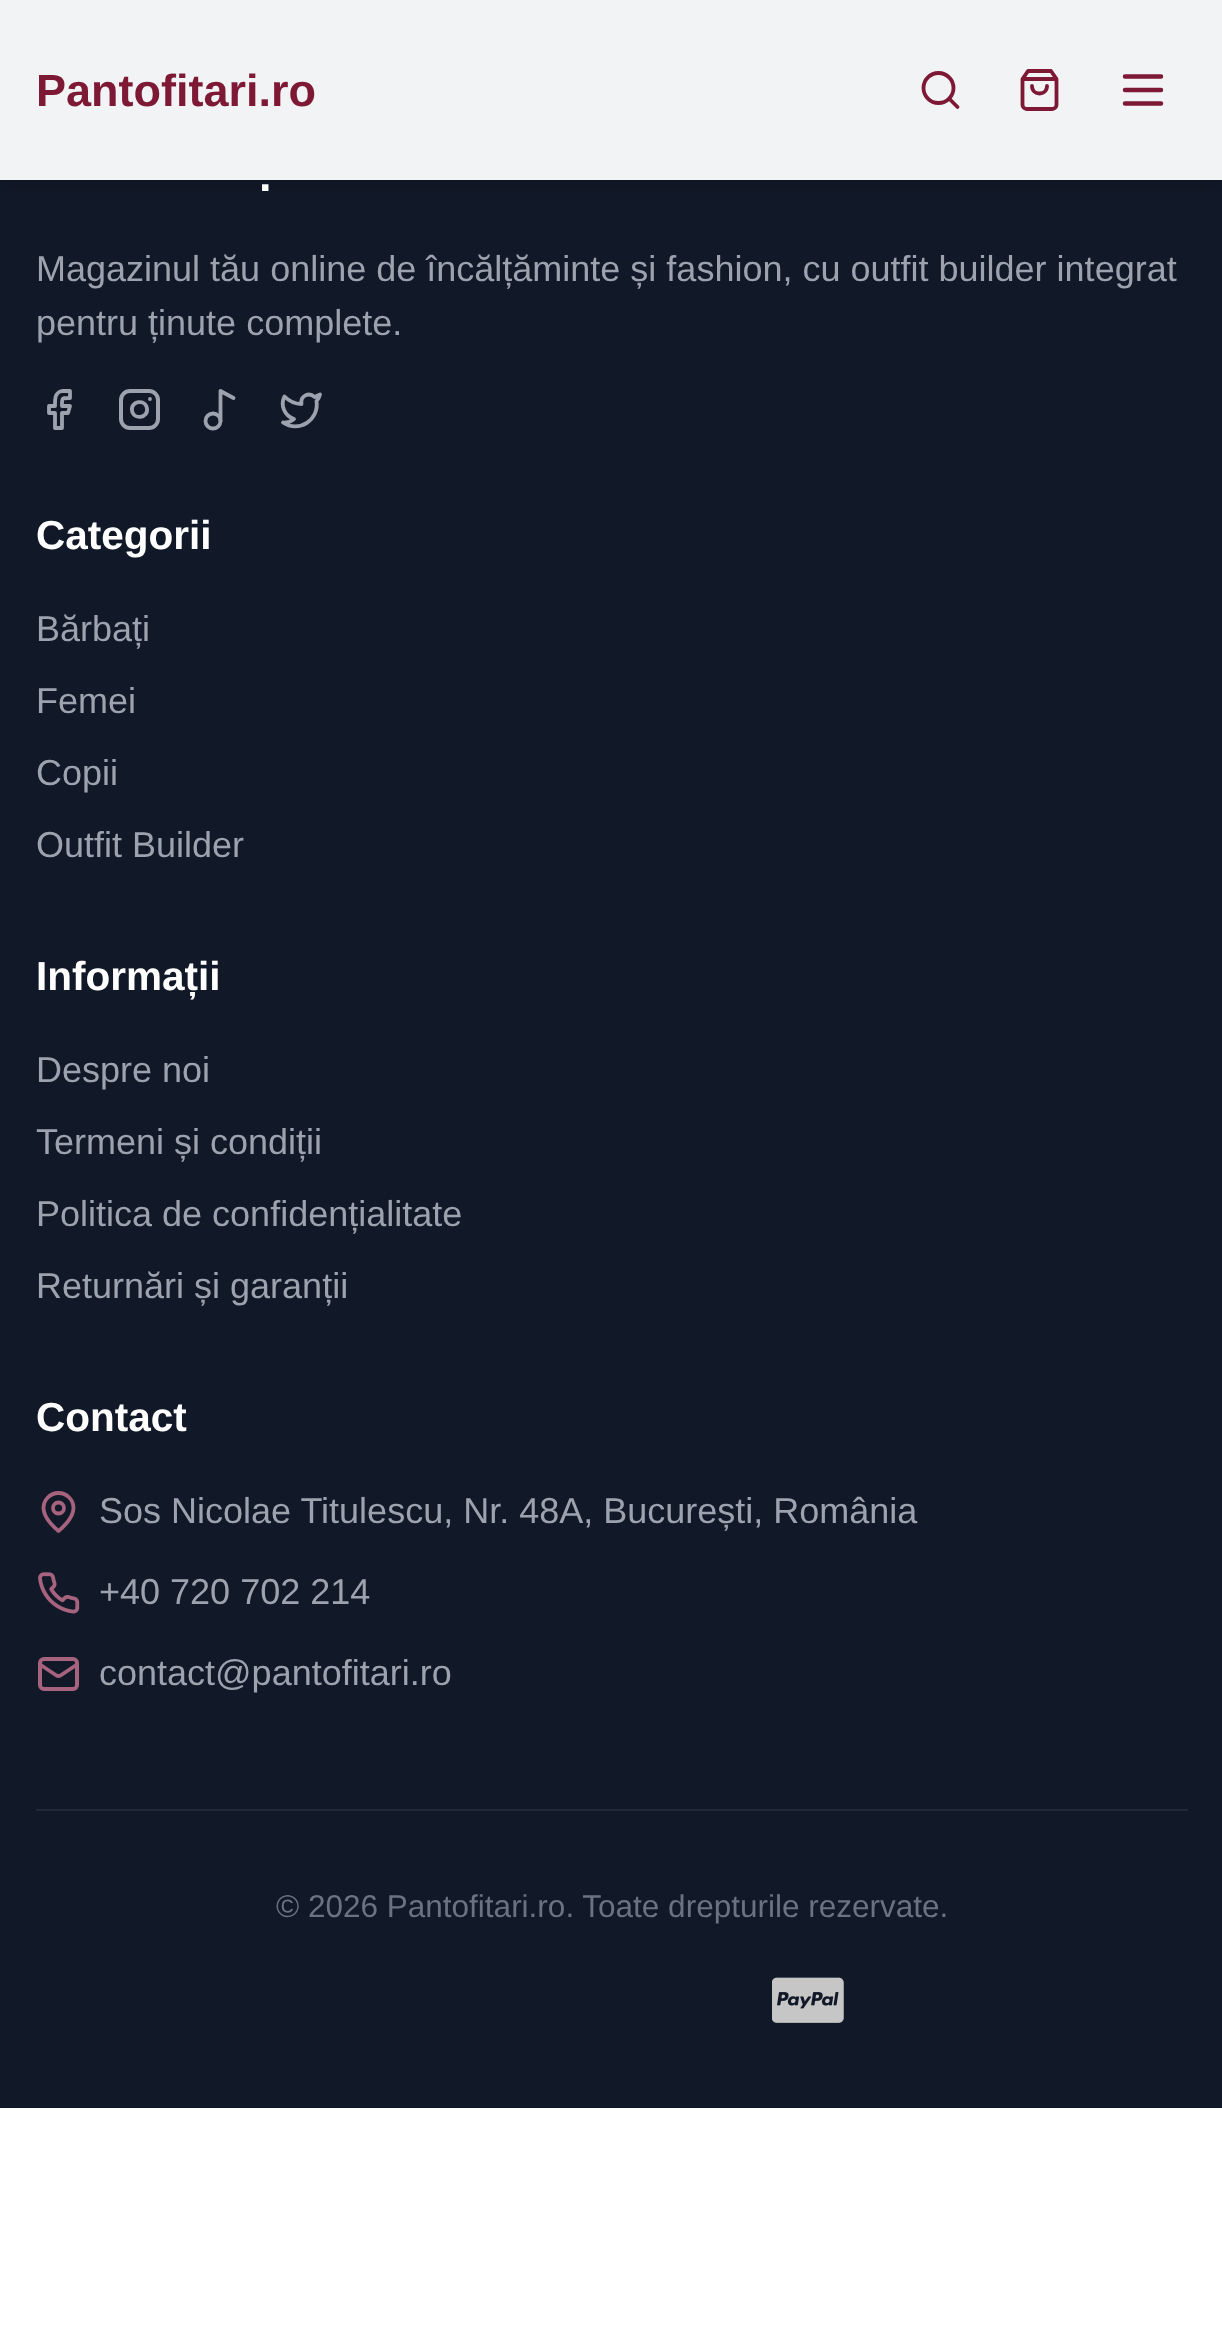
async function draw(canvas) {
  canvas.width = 1222
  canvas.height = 2346
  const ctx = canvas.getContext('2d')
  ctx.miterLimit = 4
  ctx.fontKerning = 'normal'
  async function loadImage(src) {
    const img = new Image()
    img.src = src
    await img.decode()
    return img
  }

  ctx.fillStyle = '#fff'
  ctx.fillRect(0, 0, 1222, 2346)
  ctx.fillStyle = '#111827'
  ctx.fillRect(0, 0, 1222, 2108)
  ctx.save()
  ctx.beginPath()
  ctx.rect(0, 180, 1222, 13)
  ctx.clip()
  ctx.fillStyle = '#0000001a'
  ctx.filter = 'blur(7px)'
  ctx.beginPath()
  ctx.rect(2, 11, 1220, 176)
  ctx.fill()
  ctx.filter = 'none'
  ctx.restore()
  ctx.fillStyle = '#fffffff2'
  ctx.fillRect(0, 0, 1222, 180)
  ctx.font = 'bold 45px Liberation Sans'
  ctx.fillStyle = '#7d1935'
  ctx.fillText('Pantofitari.ro', 36, 106)
  ctx.beginPath()
  ctx.arc(938.5, 88, 15, 0, 2 * Math.PI)
  ctx.strokeStyle = '#7d1935'
  ctx.lineWidth = 3.8
  ctx.stroke()
  ctx.beginPath()
  ctx.moveTo(957.5, 107)
  ctx.lineTo(949.5, 99)
  ctx.lineCap = 'round'
  ctx.lineJoin = 'round'
  ctx.stroke()
  ctx.beginPath()
  ctx.moveTo(1028, 71)
  ctx.lineTo(1022.5, 79)
  ctx.lineTo(1022.5, 105)
  ctx.bezierCurveTo(1022.5, 107, 1024.5, 109, 1026.5, 109)
  ctx.lineTo(1052.5, 109)
  ctx.bezierCurveTo(1054.5, 109, 1056.5, 107, 1056.5, 105)
  ctx.lineTo(1056.5, 79)
  ctx.lineTo(1051, 71)
  ctx.closePath()
  ctx.moveTo(1022.5, 79)
  ctx.lineTo(1056.5, 79)
  ctx.moveTo(1047, 86)
  ctx.bezierCurveTo(1047, 96, 1032, 96, 1032, 86)
  ctx.stroke()
  ctx.beginPath()
  ctx.moveTo(1125, 90)
  ctx.lineTo(1161, 90)
  ctx.moveTo(1125, 76.5)
  ctx.lineTo(1161, 76.5)
  ctx.moveTo(1125, 103.5)
  ctx.lineTo(1161, 103.5)
  ctx.lineWidth = 4.5
  ctx.stroke()
  ctx.fillStyle = '#fff'
  ctx.fillText('.', 259, 191)
  ctx.font = '36px Liberation Sans'
  ctx.fillStyle = '#9ca3af'
  ctx.fillText('Magazinul tău online de încălțăminte și fashion, cu outfit builder integrat', 36, 281)
  ctx.fillText('pentru ținute complete.', 36, 335)
  ctx.beginPath()
  ctx.moveTo(70, 391)
  ctx.lineTo(62, 391)
  ctx.bezierCurveTo(54.5, 392.5, 55, 399.5, 55, 406)
  ctx.lineTo(49, 406)
  ctx.lineTo(49, 413)
  ctx.lineTo(55, 413)
  ctx.lineTo(55, 428)
  ctx.lineTo(62, 428)
  ctx.lineTo(62, 413)
  ctx.lineTo(68, 413)
  ctx.lineTo(70, 406)
  ctx.lineTo(62, 406)
  ctx.bezierCurveTo(62, 397.5, 61.5, 398, 70, 398)
  ctx.closePath()
  ctx.strokeStyle = '#9ca3af'
  ctx.lineWidth = 3.8
  ctx.stroke()
  ctx.beginPath()
  ctx.roundRect(121, 391, 37, 37, 9)
  ctx.lineWidth = 4
  ctx.lineJoin = 'miter'
  ctx.stroke()
  ctx.beginPath()
  ctx.moveTo(147, 408.5)
  ctx.bezierCurveTo(148.5, 418, 133.5, 420.5, 132, 410.5)
  ctx.bezierCurveTo(130.5, 401, 145.5, 398.5, 147, 408.5)
  ctx.closePath()
  ctx.moveTo(150, 399)
  ctx.lineTo(150, 399)
  ctx.lineWidth = 3.8
  ctx.lineJoin = 'round'
  ctx.stroke()
  ctx.beginPath()
  ctx.arc(213, 421, 7.5, 0, 2 * Math.PI)
  ctx.stroke()
  ctx.beginPath()
  ctx.moveTo(220.5, 421)
  ctx.lineTo(220.5, 391)
  ctx.lineTo(233.5, 398)
  ctx.stroke()
  ctx.beginPath()
  ctx.moveTo(320, 394.5)
  ctx.bezierCurveTo(320, 394.5, 319, 398.5, 316.5, 401)
  ctx.bezierCurveTo(319.5, 419.5, 299, 433.5, 283, 422.5)
  ctx.bezierCurveTo(287, 423, 291, 421.5, 294, 419)
  ctx.bezierCurveTo(284.5, 416, 280, 405, 284.5, 396.5)
  ctx.bezierCurveTo(289, 401, 295, 404, 301.5, 404)
  ctx.bezierCurveTo(300, 396, 309, 391.5, 314.5, 397)
  ctx.closePath()
  ctx.stroke()
  ctx.font = 'bold 40.5px Liberation Sans'
  ctx.fillStyle = '#fff'
  ctx.fillText('Categorii', 36, 549)
  ctx.font = '36px Liberation Sans'
  ctx.fillStyle = '#9ca3af'
  ctx.fillText('Bărbați', 36, 641)
  ctx.fillText('Femei', 36, 713)
  ctx.fillText('Copii', 36, 785)
  ctx.fillText('Outfit Builder', 36, 857)
  ctx.font = 'bold 40.5px Liberation Sans'
  ctx.fillStyle = '#fff'
  ctx.fillText('Informații', 36, 990)
  ctx.font = '36px Liberation Sans'
  ctx.fillStyle = '#9ca3af'
  ctx.fillText('Despre noi', 36, 1082)
  ctx.fillText('Termeni și condiții', 36, 1154)
  ctx.fillText('Politica de confidențialitate', 36, 1226)
  ctx.fillText('Returnări și garanții', 36, 1298)
  ctx.font = 'bold 40.5px Liberation Sans'
  ctx.fillStyle = '#fff'
  ctx.fillText('Contact', 36, 1431)
  ctx.beginPath()
  ctx.moveTo(73.5, 1508)
  ctx.bezierCurveTo(73.5, 1519.5, 58.5, 1531, 58.5, 1531)
  ctx.bezierCurveTo(58.5, 1531, 43.5, 1519.5, 43.5, 1508)
  ctx.bezierCurveTo(43.5, 1500, 50, 1493, 58.5, 1493)
  ctx.bezierCurveTo(67, 1493, 73.5, 1500, 73.5, 1508)
  ctx.closePath()
  ctx.strokeStyle = '#a6637e'
  ctx.stroke()
  ctx.beginPath()
  ctx.arc(58.5, 1508, 5.5, 0, 2 * Math.PI)
  ctx.stroke()
  ctx.font = '36px Liberation Sans'
  ctx.fillStyle = '#9ca3af'
  ctx.fillText('Sos Nicolae Titulescu, Nr. 48A, București, România', 99, 1523)
  ctx.drawImage(await loadImage('image0.png'), 38, 1572, 42, 42)
  ctx.fillText('+40 720 702 214', 99, 1604)
  ctx.beginPath()
  ctx.roundRect(40, 1659, 37, 30, 4)
  ctx.lineWidth = 4
  ctx.lineJoin = 'miter'
  ctx.stroke()
  ctx.beginPath()
  ctx.moveTo(77, 1664.5)
  ctx.lineTo(60.5, 1675.5)
  ctx.bezierCurveTo(59.5, 1676, 57.5, 1676, 56.5, 1675.5)
  ctx.lineTo(40, 1664.5)
  ctx.lineWidth = 3.8
  ctx.lineJoin = 'round'
  ctx.stroke()
  ctx.fillText('contact@pantofitari.ro', 99, 1685)
  ctx.fillStyle = '#1f2937'
  ctx.fillRect(36, 1809, 1152, 2)
  ctx.font = '31.5px Liberation Sans'
  ctx.fillStyle = '#6b7280'
  ctx.fillText('© 2026 Pantofitari.ro. Toate drepturile rezervate.', 276, 1917)
  ctx.drawImage(await loadImage('image1.png'), 772, 1977, 72, 46)
}

draw(document.querySelector('canvas'))
